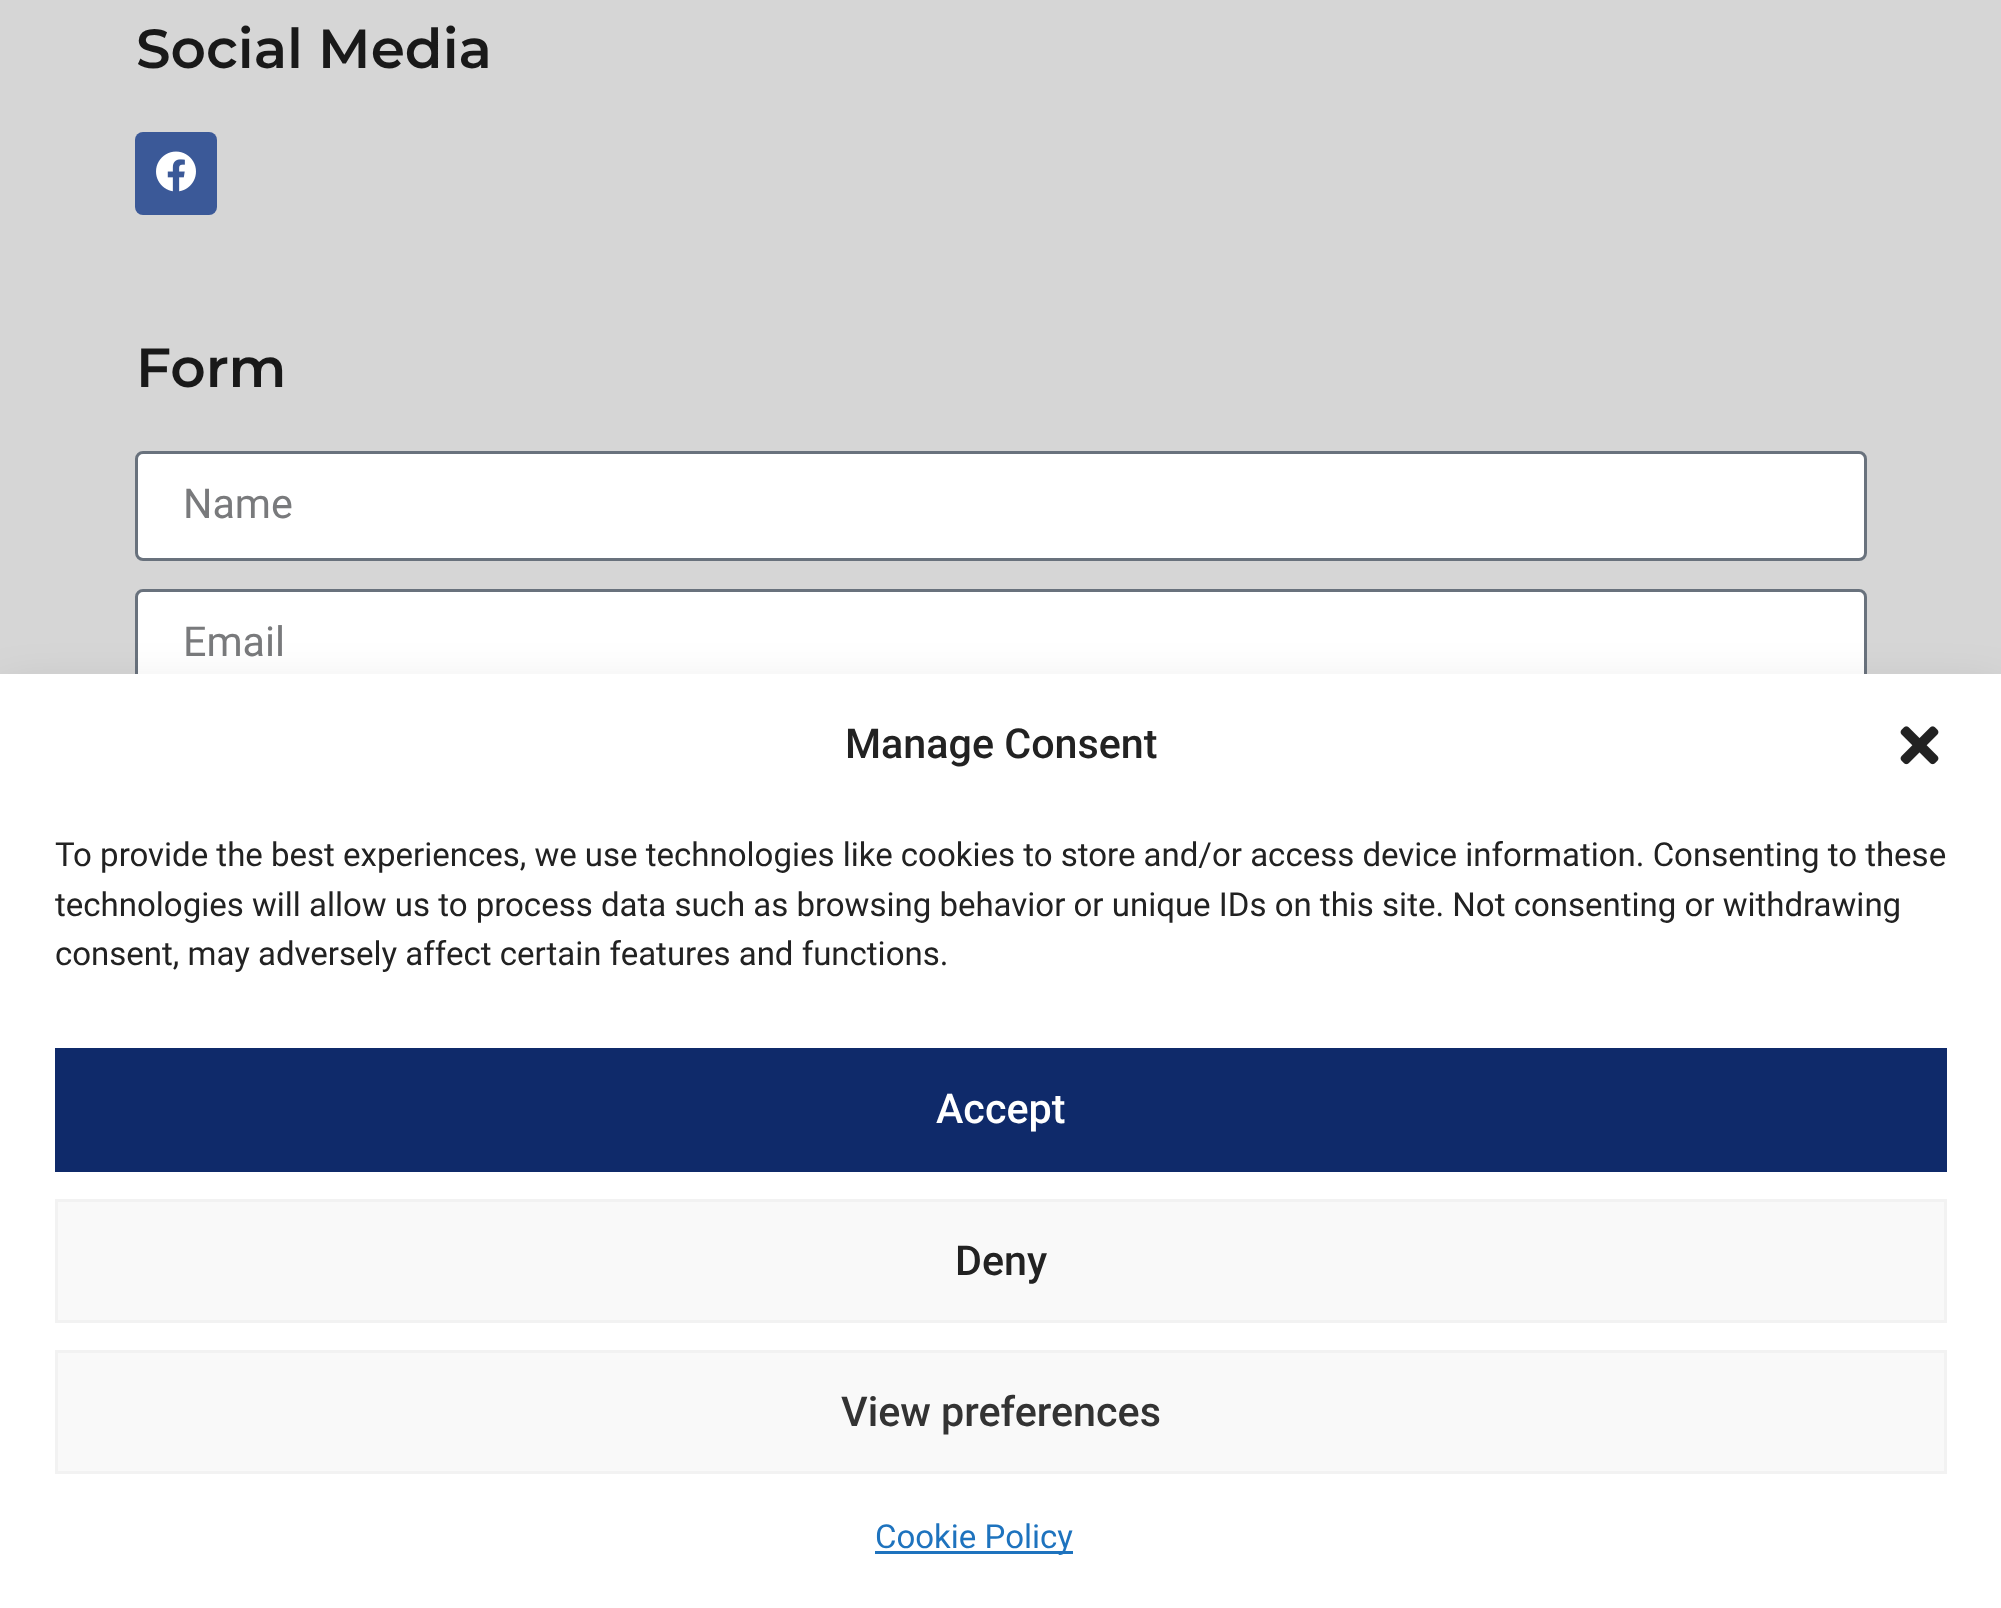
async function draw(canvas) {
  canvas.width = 2001
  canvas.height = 1608
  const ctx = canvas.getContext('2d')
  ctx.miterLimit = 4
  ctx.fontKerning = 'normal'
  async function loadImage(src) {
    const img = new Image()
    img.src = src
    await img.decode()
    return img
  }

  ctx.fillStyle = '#d6d6d6'
  ctx.fillRect(0, 0, 2001, 1608)
  ctx.font = '600 55px Montserrat'
  ctx.fillStyle = '#191919'
  ctx.fillText('Social Media', 136, 68)
  ctx.fillStyle = '#3b5998'
  ctx.beginPath()
  ctx.roundRect(135, 132, 82, 83, 8)
  ctx.fill()
  ctx.drawImage(await loadImage('image0.png'), 156, 151, 40, 41)
  ctx.fillStyle = '#191919'
  ctx.fillText('Form', 136, 387)
  ctx.fillStyle = '#fff'
  ctx.beginPath()
  ctx.roundRect(136.5, 452.5, 1729, 107, 6.5)
  ctx.fill()
  ctx.strokeStyle = '#69727d'
  ctx.lineWidth = 3
  ctx.stroke()
  ctx.font = '41.25px Roboto'
  ctx.fillStyle = '#797a7c'
  ctx.fillText('Name', 183, 518)
  ctx.fillStyle = '#fff'
  ctx.beginPath()
  ctx.roundRect(136.5, 590.5, 1729, 107, 6.5)
  ctx.fill()
  ctx.stroke()
  ctx.fillStyle = '#797a7c'
  ctx.fillText('Email', 183, 656)
  ctx.fillStyle = '#00000030'
  ctx.filter = 'blur(27.5px)'
  ctx.beginPath()
  ctx.rect(0, 701, 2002, 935)
  ctx.fill()
  ctx.filter = 'none'
  ctx.fillStyle = '#fff'
  ctx.fillRect(0, 674, 2001, 934)
  ctx.font = '500 41.25px Roboto'
  ctx.fillStyle = '#222'
  ctx.fillText('Manage Consent', 845, 758)
  ctx.drawImage(await loadImage('image1.png'), 1900, 726, 39, 39)
  ctx.font = '33px Roboto'
  ctx.fillText('To provide the best experiences, we use technologies like cookies to store and/or access device information. Consenting to these', 55, 866)
  ctx.fillText('technologies will allow us to process data such as browsing behavior or unique IDs on this site. Not consenting or withdrawing', 55, 916)
  ctx.fillText('consent, may adversely affect certain features and functions.', 55, 965)
  ctx.fillStyle = '#0f2a6a'
  ctx.fillRect(55, 1048, 1892, 124)
  ctx.font = '500 41.25px Roboto'
  ctx.fillStyle = '#fff'
  ctx.fillText('Accept', 936, 1123)
  ctx.fillStyle = '#f9f9f9'
  ctx.beginPath()
  ctx.rect(56.5, 1200.5, 1889, 121)
  ctx.fill()
  ctx.strokeStyle = '#f2f2f2'
  ctx.stroke()
  ctx.fillStyle = '#222'
  ctx.fillText('Deny', 955, 1275)
  ctx.fillStyle = '#f9f9f9'
  ctx.beginPath()
  ctx.rect(56.5, 1351.5, 1889, 121)
  ctx.fill()
  ctx.stroke()
  ctx.fillStyle = '#333'
  ctx.fillText('View preferences', 841, 1426)
  ctx.fillStyle = '#1e73be'
  ctx.fillRect(875, 1551, 198, 3)
  ctx.font = '33px Roboto'
  ctx.fillText('Cookie Policy', 875, 1548)
}

draw(document.querySelector('canvas'))
